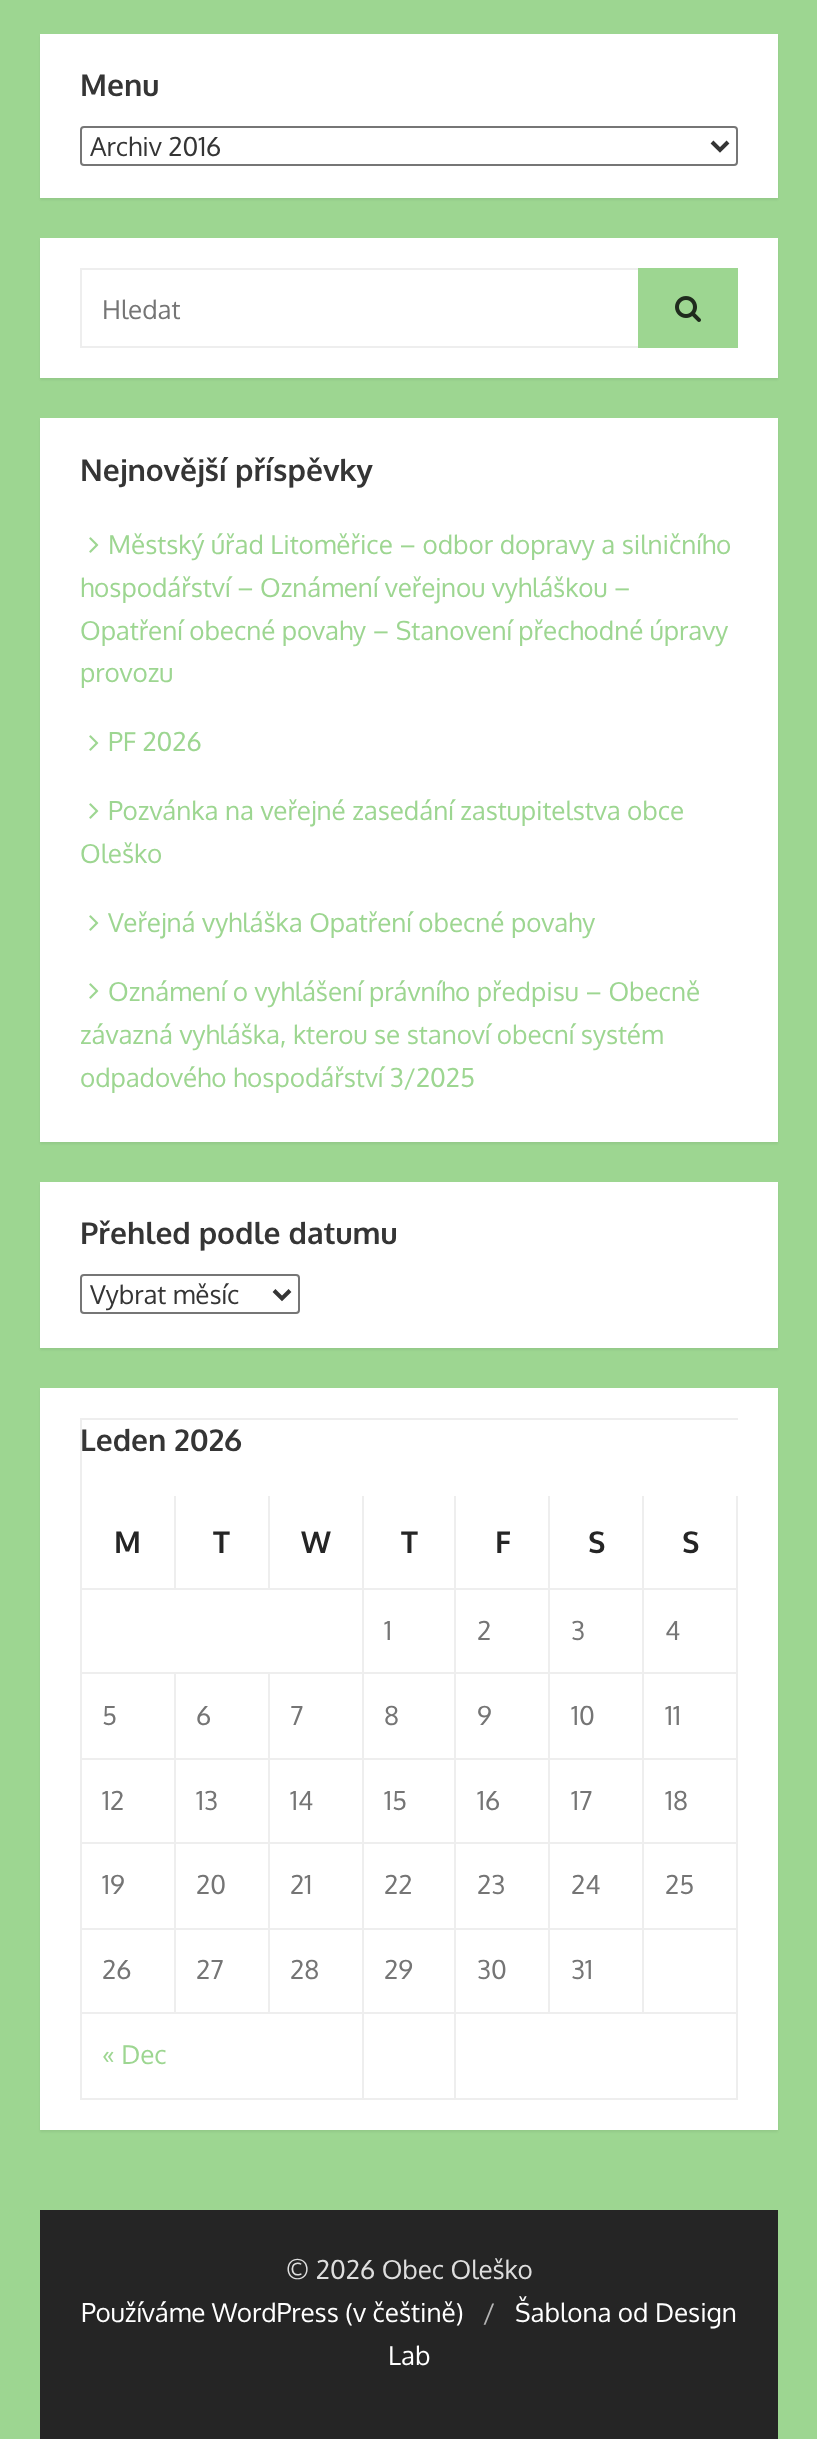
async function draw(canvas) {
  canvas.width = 817
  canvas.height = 2439
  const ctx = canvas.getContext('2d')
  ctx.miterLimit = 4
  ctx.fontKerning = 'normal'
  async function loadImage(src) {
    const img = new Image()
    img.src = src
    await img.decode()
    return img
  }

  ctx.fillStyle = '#9dd691'
  ctx.fillRect(0, 0, 817, 2439)
  ctx.fillStyle = '#0000000f'
  ctx.filter = 'blur(1px)'
  ctx.beginPath()
  ctx.rect(40, 36, 738, 164)
  ctx.fill()
  ctx.filter = 'none'
  ctx.fillStyle = '#fff'
  ctx.fillRect(40, 34, 738, 164)
  ctx.font = 'bold 30px Oxygen'
  ctx.fillStyle = '#353535'
  ctx.fillText('Menu', 80, 96)
  ctx.beginPath()
  ctx.roundRect(81, 127, 656, 38, 3)
  ctx.strokeStyle = '#767676'
  ctx.lineWidth = 2
  ctx.stroke()
  ctx.beginPath()
  ctx.moveTo(712, 142)
  ctx.lineTo(720, 150)
  ctx.lineTo(728, 142)
  ctx.strokeStyle = '#353535'
  ctx.lineWidth = 4
  ctx.stroke()
  ctx.font = '26px Oxygen'
  ctx.fillText('Archiv 2016', 90, 156)
  ctx.fillStyle = '#0000000f'
  ctx.filter = 'blur(1px)'
  ctx.beginPath()
  ctx.rect(40, 240, 738, 140)
  ctx.fill()
  ctx.filter = 'none'
  ctx.fillStyle = '#fff'
  ctx.fillRect(40, 238, 738, 140)
  ctx.strokeStyle = '#eee'
  ctx.lineWidth = 2
  ctx.strokeRect(81, 269, 656, 78)
  ctx.fillStyle = '#757575'
  ctx.fillText('Hledat', 102, 319)
  ctx.fillStyle = '#9dd691'
  ctx.fillRect(638, 268, 100, 80)
  ctx.drawImage(await loadImage('image0.png'), 675, 296, 26, 26)
  ctx.fillStyle = '#0000000f'
  ctx.filter = 'blur(1px)'
  ctx.beginPath()
  ctx.rect(40, 420, 738, 724)
  ctx.fill()
  ctx.filter = 'none'
  ctx.fillStyle = '#fff'
  ctx.fillRect(40, 418, 738, 724)
  ctx.font = 'bold 30px Oxygen'
  ctx.fillStyle = '#353535'
  ctx.fillText('Nejnovější příspěvky', 80, 481)
  ctx.drawImage(await loadImage('image1.png'), 89, 537, 10, 16)
  ctx.font = '26px Oxygen'
  ctx.fillStyle = '#9dd691'
  ctx.fillText('Městský úřad Litoměřice – odbor dopravy a silničního', 108, 554)
  ctx.fillText('hospodářství – Oznámení veřejnou vyhláškou –', 80, 597)
  ctx.fillText('Opatření obecné povahy – Stanovení přechodné úpravy', 80, 640)
  ctx.fillText('provozu', 80, 682)
  ctx.drawImage(await loadImage('image1.png'), 89, 735, 10, 16)
  ctx.fillText('PF 2026', 108, 751)
  ctx.drawImage(await loadImage('image1.png'), 89, 803, 10, 16)
  ctx.fillText('Pozvánka na veřejné zasedání zastupitelstva obce', 108, 820)
  ctx.fillText('Oleško', 80, 863)
  ctx.drawImage(await loadImage('image1.png'), 89, 915, 10, 16)
  ctx.fillText('Veřejná vyhláška Opatření obecné povahy', 108, 932)
  ctx.drawImage(await loadImage('image1.png'), 89, 983, 10, 16)
  ctx.fillText('Oznámení o vyhlášení právního předpisu – Obecně', 108, 1001)
  ctx.fillText('závazná vyhláška, kterou se stanoví obecní systém', 80, 1044)
  ctx.fillText('odpadového hospodářství 3/2025', 80, 1087)
  ctx.fillStyle = '#0000000f'
  ctx.filter = 'blur(1px)'
  ctx.beginPath()
  ctx.rect(40, 1184, 738, 166)
  ctx.fill()
  ctx.filter = 'none'
  ctx.fillStyle = '#fff'
  ctx.fillRect(40, 1182, 738, 166)
  ctx.font = 'bold 30px Oxygen'
  ctx.fillStyle = '#353535'
  ctx.fillText('Přehled podle datumu', 80, 1244)
  ctx.beginPath()
  ctx.roundRect(81, 1275, 218, 38, 3)
  ctx.strokeStyle = '#767676'
  ctx.stroke()
  ctx.beginPath()
  ctx.moveTo(274, 1290.5)
  ctx.lineTo(282, 1298.5)
  ctx.lineTo(290, 1290.5)
  ctx.strokeStyle = '#353535'
  ctx.lineWidth = 4
  ctx.stroke()
  ctx.font = '26px Oxygen'
  ctx.fillText('Vybrat měsíc', 90, 1304)
  ctx.fillStyle = '#0000000f'
  ctx.filter = 'blur(1px)'
  ctx.beginPath()
  ctx.rect(40, 1390, 738, 742)
  ctx.fill()
  ctx.filter = 'none'
  ctx.fillStyle = '#fff'
  ctx.fillRect(40, 1388, 738, 742)
  ctx.fillStyle = '#eee'
  ctx.fillRect(80, 1418, 658, 2)
  ctx.fillRect(80, 1418, 2, 682)
  ctx.font = 'bold 30px Oxygen'
  ctx.fillStyle = '#353535'
  ctx.fillText('Leden 2026', 80, 1451)
  ctx.fillStyle = '#eee'
  ctx.fillRect(736, 1496, 2, 518)
  ctx.fillRect(642, 2012, 96, 2)
  ctx.fillRect(642, 1928, 2, 86)
  ctx.fillRect(642, 1928, 96, 2)
  ctx.fillRect(642, 1842, 2, 88)
  ctx.fillRect(642, 1842, 96, 2)
  ctx.fillRect(642, 1758, 2, 86)
  ctx.fillRect(642, 1758, 96, 2)
  ctx.fillRect(642, 1672, 2, 88)
  ctx.fillRect(642, 1672, 96, 2)
  ctx.fillRect(642, 1588, 2, 86)
  ctx.fillRect(642, 1588, 96, 2)
  ctx.fillRect(642, 1496, 2, 94)
  ctx.fillRect(548, 2012, 96, 2)
  ctx.fillRect(548, 1928, 2, 86)
  ctx.fillRect(548, 1928, 96, 2)
  ctx.fillRect(548, 1842, 2, 88)
  ctx.fillRect(548, 1842, 96, 2)
  ctx.fillRect(548, 1758, 2, 86)
  ctx.fillRect(548, 1758, 96, 2)
  ctx.fillRect(548, 1672, 2, 88)
  ctx.fillRect(548, 1672, 96, 2)
  ctx.fillRect(548, 1588, 2, 86)
  ctx.fillRect(548, 1588, 96, 2)
  ctx.fillRect(548, 1496, 2, 94)
  ctx.fillRect(454, 2012, 96, 2)
  ctx.fillRect(454, 1928, 2, 86)
  ctx.fillRect(454, 1928, 96, 2)
  ctx.fillRect(454, 1842, 2, 88)
  ctx.fillRect(454, 1842, 96, 2)
  ctx.fillRect(454, 1758, 2, 86)
  ctx.fillRect(454, 1758, 96, 2)
  ctx.fillRect(454, 1672, 2, 88)
  ctx.fillRect(454, 1672, 96, 2)
  ctx.fillRect(454, 1588, 2, 86)
  ctx.fillRect(454, 1588, 96, 2)
  ctx.fillRect(454, 1496, 2, 94)
  ctx.fillRect(362, 2012, 94, 2)
  ctx.fillRect(362, 1928, 2, 86)
  ctx.fillRect(362, 1928, 94, 2)
  ctx.fillRect(362, 1842, 2, 88)
  ctx.fillRect(362, 1842, 94, 2)
  ctx.fillRect(362, 1758, 2, 86)
  ctx.fillRect(362, 1758, 94, 2)
  ctx.fillRect(362, 1672, 2, 88)
  ctx.fillRect(362, 1672, 94, 2)
  ctx.fillRect(362, 1588, 2, 86)
  ctx.fillRect(362, 1588, 94, 2)
  ctx.fillRect(362, 1496, 2, 94)
  ctx.fillRect(268, 1588, 96, 2)
  ctx.fillRect(268, 1496, 2, 94)
  ctx.fillRect(174, 1588, 96, 2)
  ctx.fillRect(174, 1496, 2, 94)
  ctx.fillRect(80, 1588, 96, 2)
  ctx.fillStyle = '#252525'
  ctx.fillText('M', 114, 1553)
  ctx.fillText('T', 213, 1553)
  ctx.fillText('W', 301, 1553)
  ctx.fillText('T', 401, 1553)
  ctx.fillText('F', 495, 1553)
  ctx.fillText('S', 588, 1553)
  ctx.fillText('S', 682, 1553)
  ctx.fillStyle = '#eee'
  ctx.fillRect(268, 2012, 96, 2)
  ctx.fillRect(268, 1928, 2, 86)
  ctx.fillRect(268, 1928, 96, 2)
  ctx.fillRect(268, 1842, 2, 88)
  ctx.fillRect(268, 1842, 96, 2)
  ctx.fillRect(268, 1758, 2, 86)
  ctx.fillRect(268, 1758, 96, 2)
  ctx.fillRect(268, 1672, 2, 88)
  ctx.fillRect(174, 2012, 96, 2)
  ctx.fillRect(174, 1928, 2, 86)
  ctx.fillRect(174, 1928, 96, 2)
  ctx.fillRect(174, 1842, 2, 88)
  ctx.fillRect(174, 1842, 96, 2)
  ctx.fillRect(174, 1758, 2, 86)
  ctx.fillRect(174, 1758, 96, 2)
  ctx.fillRect(174, 1672, 2, 88)
  ctx.fillRect(80, 1672, 284, 2)
  ctx.font = '26px Oxygen'
  ctx.fillStyle = '#757575'
  ctx.fillText('1', 384, 1640)
  ctx.fillText('2', 477, 1640)
  ctx.fillText('3', 571, 1640)
  ctx.fillText('4', 665, 1640)
  ctx.fillStyle = '#eee'
  ctx.fillRect(80, 1758, 96, 2)
  ctx.fillStyle = '#757575'
  ctx.fillText('5', 102, 1725)
  ctx.fillText('6', 196, 1725)
  ctx.fillText('7', 290, 1725)
  ctx.fillText('8', 384, 1725)
  ctx.fillText('9', 477, 1725)
  ctx.fillText('10', 571, 1725)
  ctx.fillText('11', 665, 1725)
  ctx.fillStyle = '#eee'
  ctx.fillRect(80, 1842, 96, 2)
  ctx.fillStyle = '#757575'
  ctx.fillText('12', 102, 1810)
  ctx.fillText('13', 196, 1810)
  ctx.fillText('14', 290, 1810)
  ctx.fillText('15', 384, 1810)
  ctx.fillText('16', 477, 1810)
  ctx.fillText('17', 571, 1810)
  ctx.fillText('18', 665, 1810)
  ctx.fillStyle = '#eee'
  ctx.fillRect(80, 1928, 96, 2)
  ctx.fillStyle = '#757575'
  ctx.fillText('19', 102, 1894)
  ctx.fillText('20', 196, 1894)
  ctx.fillText('21', 290, 1894)
  ctx.fillText('22', 384, 1894)
  ctx.fillText('23', 477, 1894)
  ctx.fillText('24', 571, 1894)
  ctx.fillText('25', 665, 1894)
  ctx.fillStyle = '#eee'
  ctx.fillRect(80, 2012, 96, 2)
  ctx.fillStyle = '#757575'
  ctx.fillText('26', 102, 1979)
  ctx.fillText('27', 196, 1979)
  ctx.fillText('28', 290, 1979)
  ctx.fillText('29', 384, 1979)
  ctx.fillText('30', 477, 1979)
  ctx.fillText('31', 571, 1979)
  ctx.fillStyle = '#eee'
  ctx.fillRect(736, 2012, 2, 88)
  ctx.fillRect(454, 2098, 284, 2)
  ctx.fillRect(454, 2012, 2, 88)
  ctx.fillRect(362, 2098, 94, 2)
  ctx.fillRect(362, 2012, 2, 88)
  ctx.fillRect(80, 2098, 284, 2)
  ctx.fillStyle = '#9dd691'
  ctx.fillText('« Dec', 102, 2064)
  ctx.fillStyle = '#252525'
  ctx.fillRect(40, 2210, 738, 229)
  ctx.fillStyle = '#dedede'
  ctx.fillText('© 2026 Obec Oleško', 286, 2279)
  ctx.fillStyle = '#fff'
  ctx.fillText('Používáme WordPress (v češtině)', 81, 2322)
  ctx.fillStyle = '#b5b5b5'
  ctx.fillText('/', 483, 2322)
  ctx.fillStyle = '#fff'
  ctx.fillText('Šablona od Design', 515, 2322)
  ctx.fillText('Lab', 388, 2365)
}

draw(document.querySelector('canvas'))
